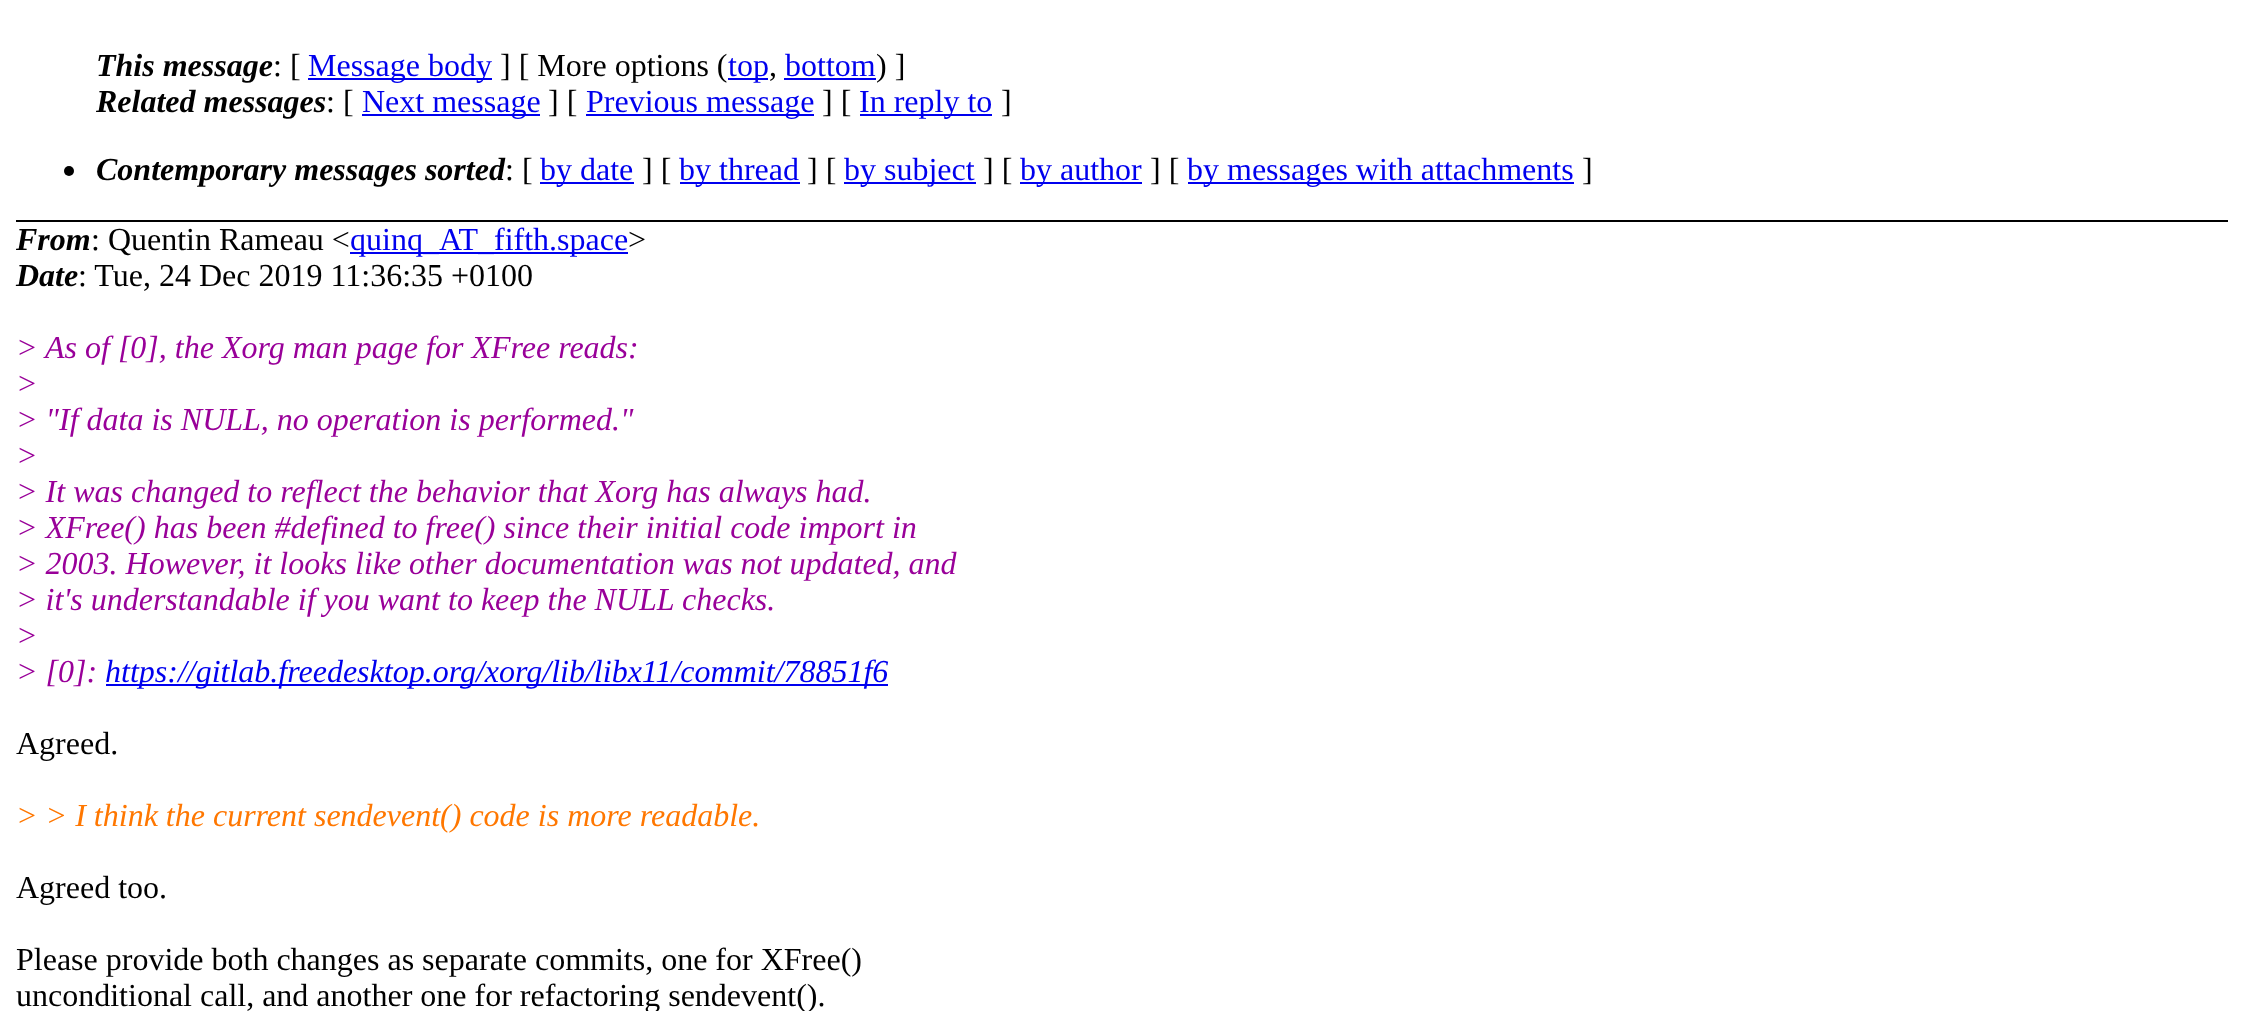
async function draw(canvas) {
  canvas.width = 2243
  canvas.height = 1011
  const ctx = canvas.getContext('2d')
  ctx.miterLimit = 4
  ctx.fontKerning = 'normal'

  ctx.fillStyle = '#fff'
  ctx.fillRect(0, 0, 2243, 1011)
  ctx.fillStyle = '#000'
  ctx.fillRect(16, 220, 2212, 2)
  ctx.font = 'italic bold 32px Liberation Serif'
  ctx.fillText('This message', 96, 76)
  ctx.font = '32px Liberation Serif'
  ctx.fillText(': [', 273, 76)
  ctx.fillStyle = '#00e'
  ctx.fillRect(308, 78, 184, 2)
  ctx.fillText('Message body', 308, 76)
  ctx.fillStyle = '#000'
  ctx.fillText('] [ More options (', 500, 76)
  ctx.fillStyle = '#00e'
  ctx.fillRect(728, 78, 40, 2)
  ctx.fillText('top', 728, 76)
  ctx.fillStyle = '#000'
  ctx.fillText(',', 769, 76)
  ctx.fillStyle = '#00e'
  ctx.fillText('bottom', 785, 76)
  ctx.fillRect(784, 78, 92, 2)
  ctx.fillStyle = '#000'
  ctx.fillText(') ]', 876, 76)
  ctx.font = 'italic bold 32px Liberation Serif'
  ctx.fillText('Related messages', 96, 112)
  ctx.font = '32px Liberation Serif'
  ctx.fillText(': [', 326, 112)
  ctx.fillStyle = '#00e'
  ctx.fillRect(362, 114, 178, 2)
  ctx.fillText('Next message', 362, 112)
  ctx.fillStyle = '#000'
  ctx.fillText('] [', 548, 112)
  ctx.fillStyle = '#00e'
  ctx.fillRect(586, 114, 228, 2)
  ctx.fillText('Previous message', 586, 112)
  ctx.fillStyle = '#000'
  ctx.fillText('] [', 822, 112)
  ctx.fillStyle = '#00e'
  ctx.fillRect(860, 114, 132, 2)
  ctx.fillText('In reply to', 859, 112)
  ctx.fillStyle = '#000'
  ctx.fillText(']', 1001, 112)
  ctx.beginPath()
  ctx.arc(69, 171, 5, 0, 2 * Math.PI)
  ctx.fill()
  ctx.font = 'italic bold 32px Liberation Serif'
  ctx.fillText('Contemporary messages sorted', 96, 180)
  ctx.font = '32px Liberation Serif'
  ctx.fillText(': [', 505, 180)
  ctx.fillStyle = '#00e'
  ctx.fillRect(540, 182, 94, 2)
  ctx.fillText('by date', 540, 180)
  ctx.fillStyle = '#000'
  ctx.fillText('] [', 642, 180)
  ctx.fillStyle = '#00e'
  ctx.fillRect(680, 182, 120, 2)
  ctx.fillText('by thread', 679, 180)
  ctx.fillStyle = '#000'
  ctx.fillText('] [', 807, 180)
  ctx.fillStyle = '#00e'
  ctx.fillRect(844, 182, 132, 2)
  ctx.fillText('by subject', 844, 180)
  ctx.fillStyle = '#000'
  ctx.fillText('] [', 983, 180)
  ctx.fillStyle = '#00e'
  ctx.fillRect(1020, 182, 122, 2)
  ctx.fillText('by author', 1020, 180)
  ctx.fillStyle = '#000'
  ctx.fillText('] [', 1150, 180)
  ctx.fillStyle = '#00e'
  ctx.fillRect(1188, 182, 386, 2)
  ctx.fillText('by messages with attachments', 1187, 180)
  ctx.fillStyle = '#000'
  ctx.fillText(']', 1582, 180)
  ctx.font = 'italic bold 32px Liberation Serif'
  ctx.fillText('From', 16, 250)
  ctx.font = '32px Liberation Serif'
  ctx.fillText(': Quentin Rameau <', 91, 250)
  ctx.fillStyle = '#00e'
  ctx.fillRect(350, 252, 278, 2)
  ctx.fillText('quinq_AT_fifth.space', 350, 250)
  ctx.fillStyle = '#000'
  ctx.fillText('>', 628, 250)
  ctx.font = 'italic bold 32px Liberation Serif'
  ctx.fillText('Date', 16, 286)
  ctx.font = '32px Liberation Serif'
  ctx.fillText(': Tue, 24 Dec 2019 11:36:35 +0100', 78, 286)
  ctx.font = 'italic 32px Liberation Serif'
  ctx.fillStyle = '#909'
  ctx.fillText('> As of [0], the Xorg man page for XFree reads:', 16, 358)
  ctx.fillText('>', 16, 394)
  ctx.fillText('> "If data is NULL, no operation is performed."', 16, 430)
  ctx.fillText('>', 16, 466)
  ctx.fillText('> It was changed to reflect the behavior that Xorg has always had.', 16, 502)
  ctx.fillText('> XFree() has been #defined to free() since their initial code import in', 16, 538)
  ctx.fillText('> 2003. However, it looks like other documentation was not updated, and', 16, 574)
  ctx.fillText('> it\'s understandable if you want to keep the NULL checks.', 16, 610)
  ctx.fillText('>', 16, 646)
  ctx.fillText('> [0]:', 16, 682)
  ctx.fillStyle = '#00e'
  ctx.fillRect(106, 684, 782, 2)
  ctx.fillText('https://gitlab.freedesktop.org/xorg/lib/libx11/commit/78851f6', 105, 682)
  ctx.font = '32px Liberation Serif'
  ctx.fillStyle = '#000'
  ctx.fillText('Agreed.', 16, 754)
  ctx.font = 'italic 32px Liberation Serif'
  ctx.fillStyle = '#f70'
  ctx.fillText('> > I think the current sendevent() code is more readable.', 16, 826)
  ctx.font = '32px Liberation Serif'
  ctx.fillStyle = '#000'
  ctx.fillText('Agreed too.', 16, 898)
  ctx.fillText('Please provide both changes as separate commits, one for XFree()', 16, 970)
  ctx.fillText('unconditional call, and another one for refactoring sendevent().', 16, 1006)
}

draw(document.querySelector('canvas'))
